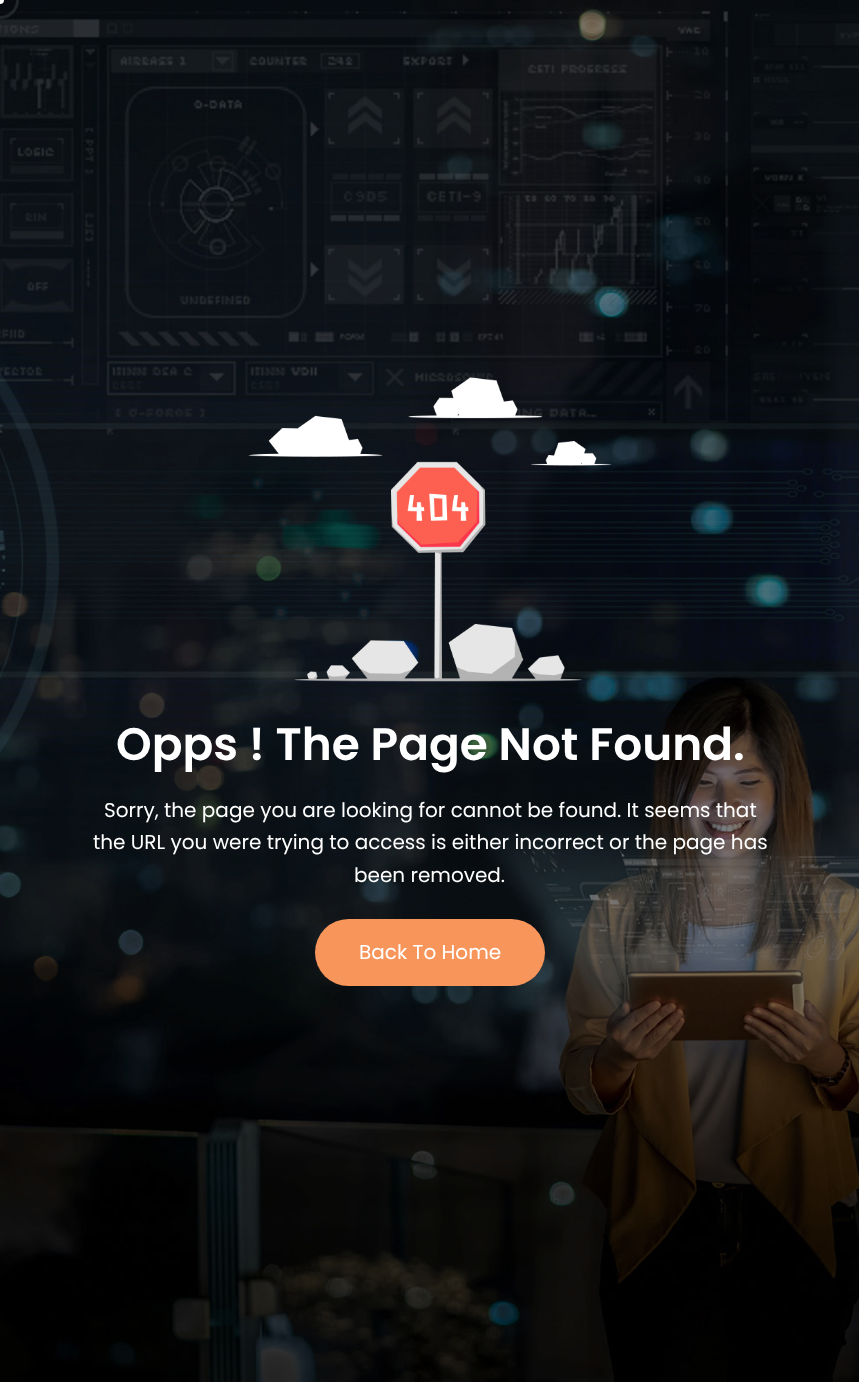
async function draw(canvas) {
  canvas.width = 859
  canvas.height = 1382
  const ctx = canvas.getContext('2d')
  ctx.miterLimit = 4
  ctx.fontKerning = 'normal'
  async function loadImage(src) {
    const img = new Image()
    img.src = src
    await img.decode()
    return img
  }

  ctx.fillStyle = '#fff'
  ctx.fillRect(0, 0, 859, 1382)
  ctx.drawImage(await loadImage('image0.png'), 0, 0, 859, 1382)
  ctx.beginPath()
  ctx.arc(0, 0, 17.5, 0, 2 * Math.PI)
  ctx.strokeStyle = '#ffffff1a'
  ctx.lineWidth = 3
  ctx.stroke()
  ctx.beginPath()
  ctx.arc(0, 0, 4, 0, 2 * Math.PI)
  ctx.fill()
  ctx.drawImage(await loadImage('image1.png'), 248, 377, 364, 305)
  ctx.font = '600 45.4px Poppins'
  ctx.fillText('Opps ! The Page Not Found.', 116, 760)
  ctx.font = '20px Poppins'
  ctx.fillText('Sorry, the page you are looking for cannot be found. It seems that', 104, 817)
  ctx.fillText('the URL you were trying to access is either incorrect or the page has', 93, 849)
  ctx.fillText('been removed.', 354, 882)
  ctx.fillStyle = '#f8955b'
  ctx.beginPath()
  ctx.roundRect(315, 919, 230, 67, 33.5)
  ctx.fill()
  ctx.fillStyle = '#fff'
  ctx.fillText('Back To Home', 359, 959)
}

draw(document.querySelector('canvas'))
